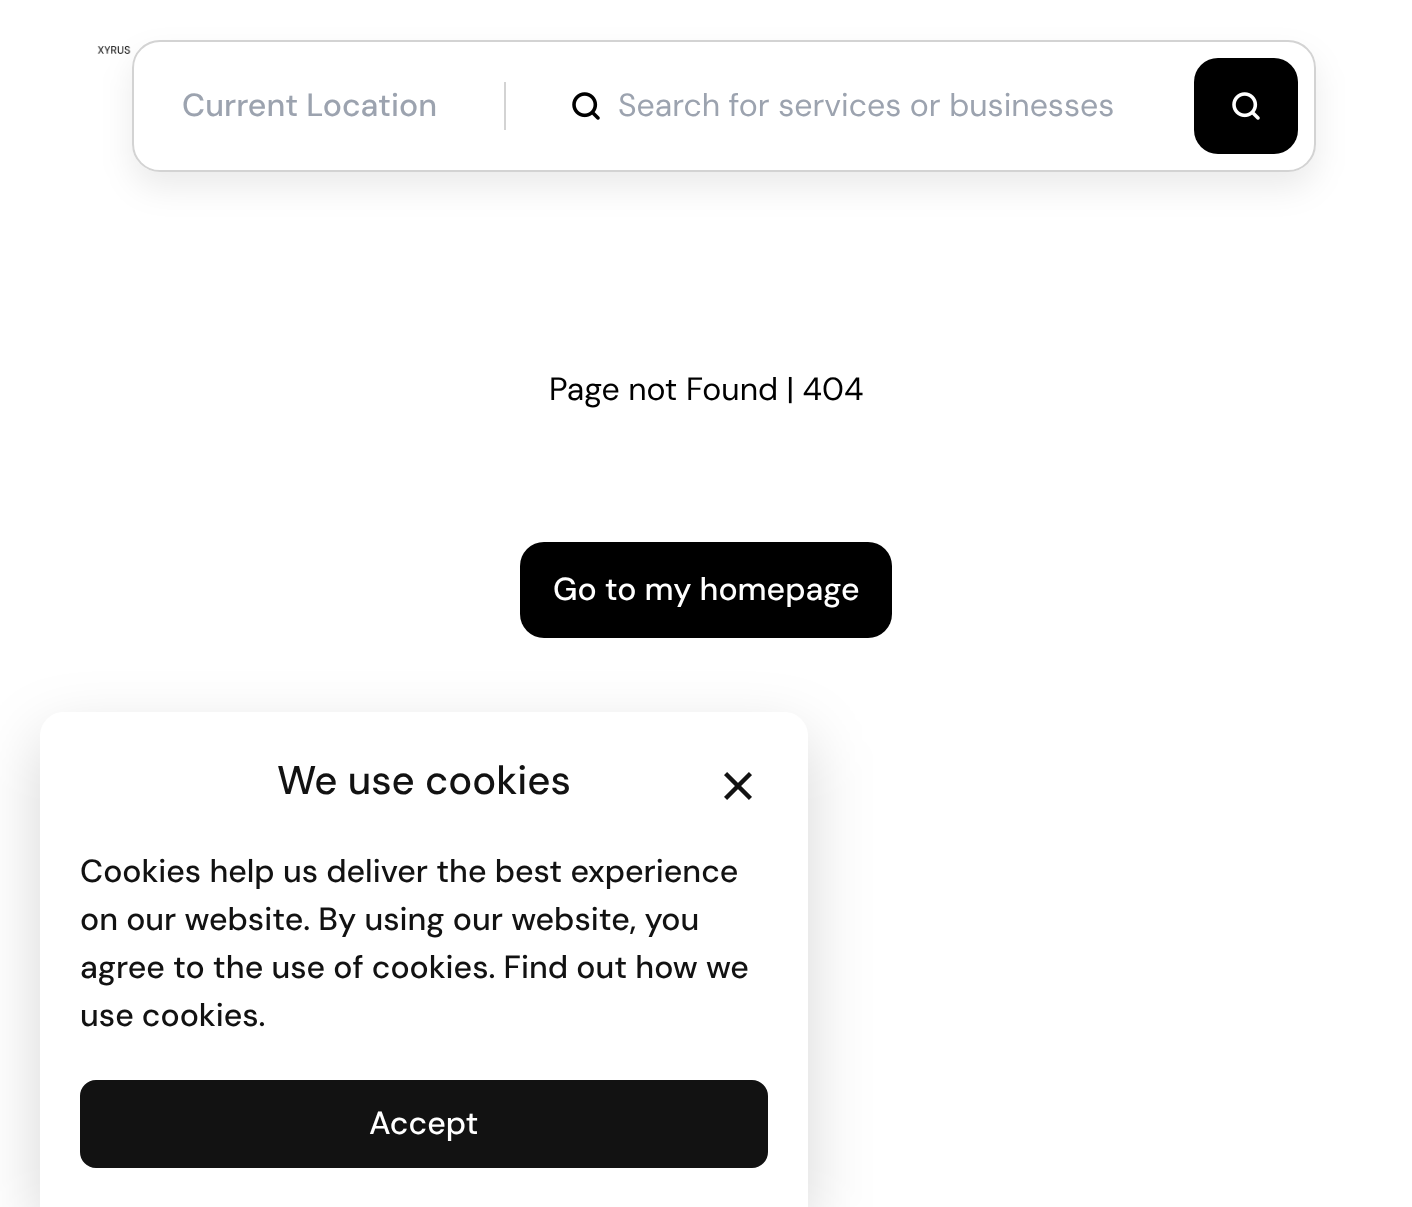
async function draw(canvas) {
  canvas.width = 1412
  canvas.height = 1207
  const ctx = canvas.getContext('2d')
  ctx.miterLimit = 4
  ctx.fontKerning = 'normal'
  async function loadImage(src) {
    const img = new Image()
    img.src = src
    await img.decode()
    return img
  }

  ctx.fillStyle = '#fff'
  ctx.fillRect(0, 0, 1412, 1207)
  ctx.drawImage(await loadImage('image0.png'), 97, 45, 34, 9)
  ctx.save()
  ctx.beginPath()
  ctx.moveTo(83, 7)
  ctx.lineTo(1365, 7)
  ctx.lineTo(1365, 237)
  ctx.lineTo(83, 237)
  ctx.closePath()
  ctx.moveTo(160, 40)
  ctx.lineTo(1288, 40)
  ctx.bezierCurveTo(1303.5, 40, 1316, 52.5, 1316, 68)
  ctx.lineTo(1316, 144)
  ctx.bezierCurveTo(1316, 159.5, 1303.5, 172, 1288, 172)
  ctx.lineTo(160, 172)
  ctx.bezierCurveTo(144.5, 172, 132, 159.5, 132, 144)
  ctx.lineTo(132, 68)
  ctx.bezierCurveTo(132, 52.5, 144.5, 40, 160, 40)
  ctx.closePath()
  ctx.clip('evenodd')
  ctx.fillStyle = '#00000014'
  ctx.filter = 'blur(16px)'
  ctx.beginPath()
  ctx.roundRect(132, 56, 1184, 132, 28)
  ctx.fill()
  ctx.filter = 'none'
  ctx.restore()
  ctx.beginPath()
  ctx.roundRect(133, 41, 1182, 130, 27)
  ctx.strokeStyle = '#d3d3d3'
  ctx.lineWidth = 2
  ctx.stroke()
  ctx.fillStyle = '#d3d3d3'
  ctx.fillRect(504, 82, 2, 48)
  ctx.font = '500 32px DM Sans'
  ctx.fillStyle = '#9ca3af'
  ctx.fillText('Current Location', 182, 116)
  ctx.drawImage(await loadImage('image1.png'), 572, 92, 28, 28)
  ctx.font = '32px DM Sans'
  ctx.fillText('Search for services or businesses', 618, 116)
  ctx.fillStyle = '#000'
  ctx.beginPath()
  ctx.roundRect(1194, 58, 104, 96, 24)
  ctx.fill()
  ctx.drawImage(await loadImage('image2.png'), 1232, 92, 28, 28)
  ctx.fillText('Page not Found | 404', 549, 400)
  ctx.beginPath()
  ctx.roundRect(520, 542, 372, 96, 24)
  ctx.fill()
  ctx.font = '500 32px DM Sans'
  ctx.fillStyle = '#fff'
  ctx.fillText('Go to my homepage', 553, 600)
  ctx.fillStyle = '#00000029'
  ctx.filter = 'blur(32px)'
  ctx.beginPath()
  ctx.roundRect(40, 736, 768, 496, 24)
  ctx.fill()
  ctx.filter = 'none'
  ctx.fillStyle = '#fff'
  ctx.beginPath()
  ctx.moveTo(64, 712)
  ctx.lineTo(784, 712)
  ctx.bezierCurveTo(797.5, 712, 808, 722.5, 808, 736)
  ctx.lineTo(808, 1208)
  ctx.lineTo(40, 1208)
  ctx.lineTo(40, 736)
  ctx.bezierCurveTo(40, 722.5, 50.5, 712, 64, 712)
  ctx.closePath()
  ctx.fill()
  ctx.font = '500 40px DM Sans'
  ctx.fillStyle = '#121212'
  ctx.fillText('We use cookies', 277, 794)
  ctx.drawImage(await loadImage('image3.png'), 724, 772, 28, 28)
  ctx.font = '500 32px DM Sans'
  ctx.fillText('Cookies help us deliver the best experience', 80, 882)
  ctx.fillText('on our website. By using our website, you', 80, 930)
  ctx.fillText('agree to the use of cookies. Find out how we', 80, 978)
  ctx.fillText('use cookies.', 80, 1026)
  ctx.beginPath()
  ctx.roundRect(82, 1082, 684, 84, 14)
  ctx.fill()
  ctx.strokeStyle = '#121212'
  ctx.lineWidth = 4
  ctx.stroke()
  ctx.fillStyle = '#fff'
  ctx.fillText('Accept', 369, 1134)
}

draw(document.querySelector('canvas'))
